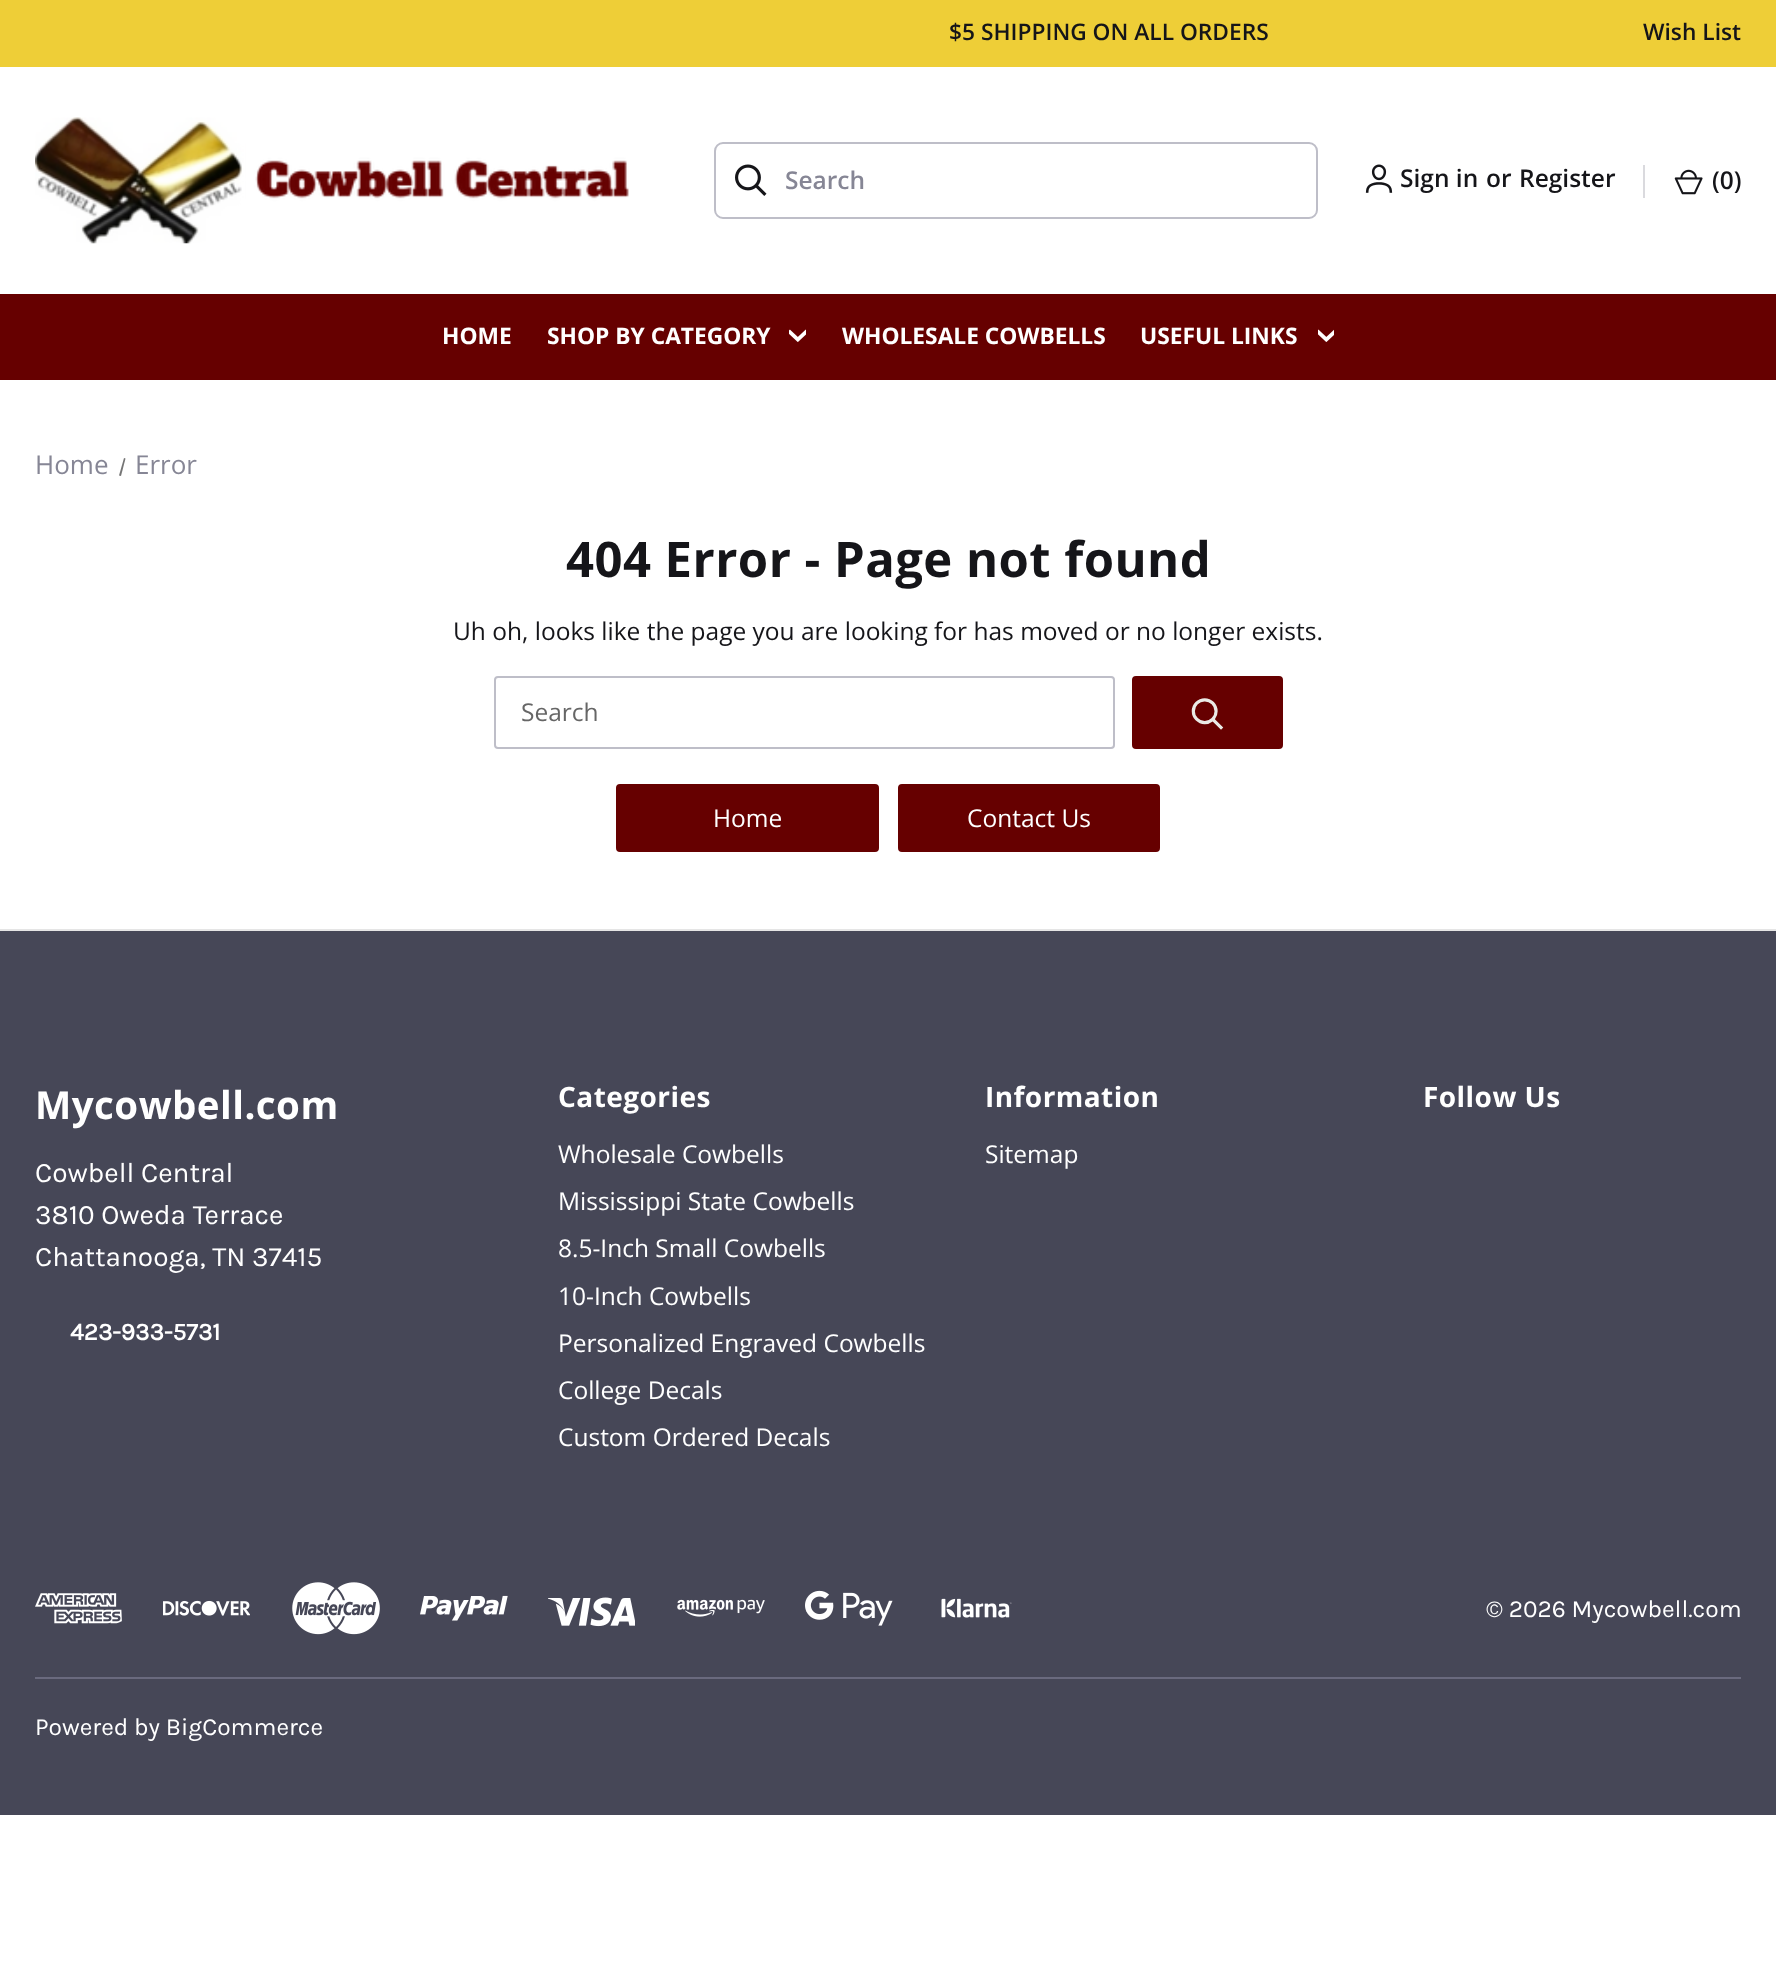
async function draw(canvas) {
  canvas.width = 1776
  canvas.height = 1981
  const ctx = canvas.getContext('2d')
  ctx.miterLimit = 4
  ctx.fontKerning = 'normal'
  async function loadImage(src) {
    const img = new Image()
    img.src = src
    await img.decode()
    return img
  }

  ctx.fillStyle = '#fff'
  ctx.fillRect(0, 0, 1776, 1981)
  ctx.fillStyle = '#eece37'
  ctx.fillRect(0, 0, 1776, 67)
  ctx.font = '600 22.75px Open Sans'
  ctx.fillStyle = '#151519'
  ctx.fillText('$5 SHIPPING ON ALL ORDERS', 949, 40)
  ctx.fillText('Wish List', 1643, 40)
  ctx.drawImage(await loadImage('image0.png'), 35, 117, 594, 127)
  ctx.beginPath()
  ctx.roundRect(715, 143, 602, 75, 8)
  ctx.strokeStyle = '#bebec8'
  ctx.lineWidth = 2
  ctx.stroke()
  ctx.drawImage(await loadImage('image1.png'), 735, 164, 32, 32)
  ctx.font = '600 24.5px Open Sans'
  ctx.fillStyle = '#868695'
  ctx.fillText('Search', 785, 189)
  ctx.drawImage(await loadImage('image2.png'), 1365, 164, 28, 29)
  ctx.fillStyle = '#151519'
  ctx.fillText('Sign in', 1400, 187)
  ctx.fillText('or', 1486, 187)
  ctx.fillText('Register', 1519, 187)
  ctx.fillStyle = '#dadade'
  ctx.fillRect(1643, 165, 2, 33)
  ctx.drawImage(await loadImage('image3.png'), 1674, 169, 29, 26)
  ctx.fillStyle = '#151519'
  ctx.fillText('(0)', 1712, 189)
  ctx.fillStyle = '#600'
  ctx.fillRect(0, 294, 1776, 86)
  ctx.font = 'bold 22.75px Open Sans'
  ctx.fillStyle = '#fff'
  ctx.fillText('HOME', 442, 344)
  ctx.fillText('SHOP BY CATEGORY', 547, 344)
  ctx.drawImage(await loadImage('image4.png'), 789, 329, 17, 13)
  ctx.fillText('WHOLESALE COWBELLS', 842, 344)
  ctx.fillText('USEFUL LINKS', 1140, 344)
  ctx.drawImage(await loadImage('image5.png'), 1318, 329, 16, 13)
  ctx.font = '26px Open Sans'
  ctx.fillStyle = '#868695'
  ctx.fillText('Home', 35, 474)
  ctx.fillStyle = '#757575'
  ctx.beginPath()
  ctx.moveTo(124, 458)
  ctx.lineTo(125.5, 458.5)
  ctx.lineTo(121, 476)
  ctx.lineTo(119, 475.5)
  ctx.closePath()
  ctx.fill()
  ctx.fillStyle = '#868695'
  ctx.fillText('Error', 135, 474)
  ctx.letterSpacing = '0.45px'
  ctx.font = 'bold 49px Open Sans'
  ctx.fillStyle = '#151519'
  ctx.fillText('404 Error - Page not found', 566, 577)
  ctx.letterSpacing = '0px'
  ctx.font = '24.5px Open Sans'
  ctx.fillText('Uh oh, looks like the page you are looking for has moved or no longer exists.', 453, 640)
  ctx.beginPath()
  ctx.roundRect(495, 677, 619, 71, 3)
  ctx.stroke()
  ctx.fillStyle = '#666'
  ctx.fillText('Search', 521, 721)
  ctx.fillStyle = '#600'
  ctx.beginPath()
  ctx.roundRect(1133, 677, 149, 71, 3)
  ctx.fill()
  ctx.strokeStyle = '#600'
  ctx.stroke()
  ctx.drawImage(await loadImage('image6.png'), 1191, 698, 33, 32)
  ctx.beginPath()
  ctx.roundRect(617, 785, 261, 66, 3)
  ctx.fill()
  ctx.stroke()
  ctx.fillStyle = '#fff'
  ctx.fillText('Home', 713, 827)
  ctx.fillStyle = '#600'
  ctx.beginPath()
  ctx.roundRect(899, 785, 260, 66, 3)
  ctx.fill()
  ctx.stroke()
  ctx.fillStyle = '#fff'
  ctx.fillText('Contact Us', 967, 827)
  ctx.fillStyle = '#464757'
  ctx.fillRect(0, 931, 1776, 884)
  ctx.fillStyle = '#e5e5e5'
  ctx.fillRect(0, 929, 1776, 2)
  ctx.letterSpacing = '0.45px'
  ctx.font = 'bold 38.5px Open Sans'
  ctx.fillStyle = '#fff'
  ctx.fillText('Mycowbell.com', 35, 1119)
  ctx.letterSpacing = '0px'
  ctx.font = '28px Karla'
  ctx.fillText('Cowbell Central', 35, 1182)
  ctx.fillText('3810 Oweda Terrace', 35, 1224)
  ctx.fillText('Chattanooga, TN 37415', 35, 1266)
  ctx.font = 'bold 24.5px Karla'
  ctx.fillText('423-933-5731', 70, 1340)
  ctx.letterSpacing = '0.45px'
  ctx.font = 'bold 28px Open Sans'
  ctx.fillText('Categories', 558, 1107)
  ctx.letterSpacing = '0px'
  ctx.font = '24.5px Open Sans'
  ctx.fillText('Wholesale Cowbells', 558, 1163)
  ctx.fillText('Mississippi State Cowbells', 558, 1210)
  ctx.fillText('8.5-Inch Small Cowbells', 558, 1257)
  ctx.fillText('10-Inch Cowbells', 558, 1305)
  ctx.fillText('Personalized Engraved Cowbells', 558, 1352)
  ctx.fillText('College Decals', 558, 1399)
  ctx.fillText('Custom Ordered Decals', 558, 1446)
  ctx.letterSpacing = '0.45px'
  ctx.font = 'bold 28px Open Sans'
  ctx.fillText('Information', 985, 1107)
  ctx.letterSpacing = '0px'
  ctx.font = '24.5px Open Sans'
  ctx.fillText('Sitemap', 985, 1163)
  ctx.letterSpacing = '0.45px'
  ctx.font = 'bold 28px Open Sans'
  ctx.fillText('Follow Us', 1423, 1107)
  ctx.fillStyle = '#6a6a7e'
  ctx.fillRect(35, 1677, 1706, 2)
  ctx.drawImage(await loadImage('image7.png'), 35, 1593, 87, 31)
  ctx.drawImage(await loadImage('image8.png'), 163, 1600, 87, 16)
  ctx.drawImage(await loadImage('image9.png'), 292, 1582, 88, 53)
  ctx.drawImage(await loadImage('image10.png'), 420, 1595, 88, 26)
  ctx.drawImage(await loadImage('image11.png'), 548, 1597, 87, 30)
  ctx.drawImage(await loadImage('image12.png'), 677, 1599, 88, 18)
  ctx.drawImage(await loadImage('image13.png'), 805, 1590, 88, 36)
  ctx.drawImage(await loadImage('image14.png'), 941, 1598, 71, 20)
  ctx.letterSpacing = '0px'
  ctx.font = '24.5px Karla'
  ctx.fillStyle = '#fff'
  ctx.fillText('© 2026 Mycowbell.com', 1486, 1617)
  ctx.fillText('Powered by BigCommerce', 35, 1735)
}

draw(document.querySelector('canvas'))
